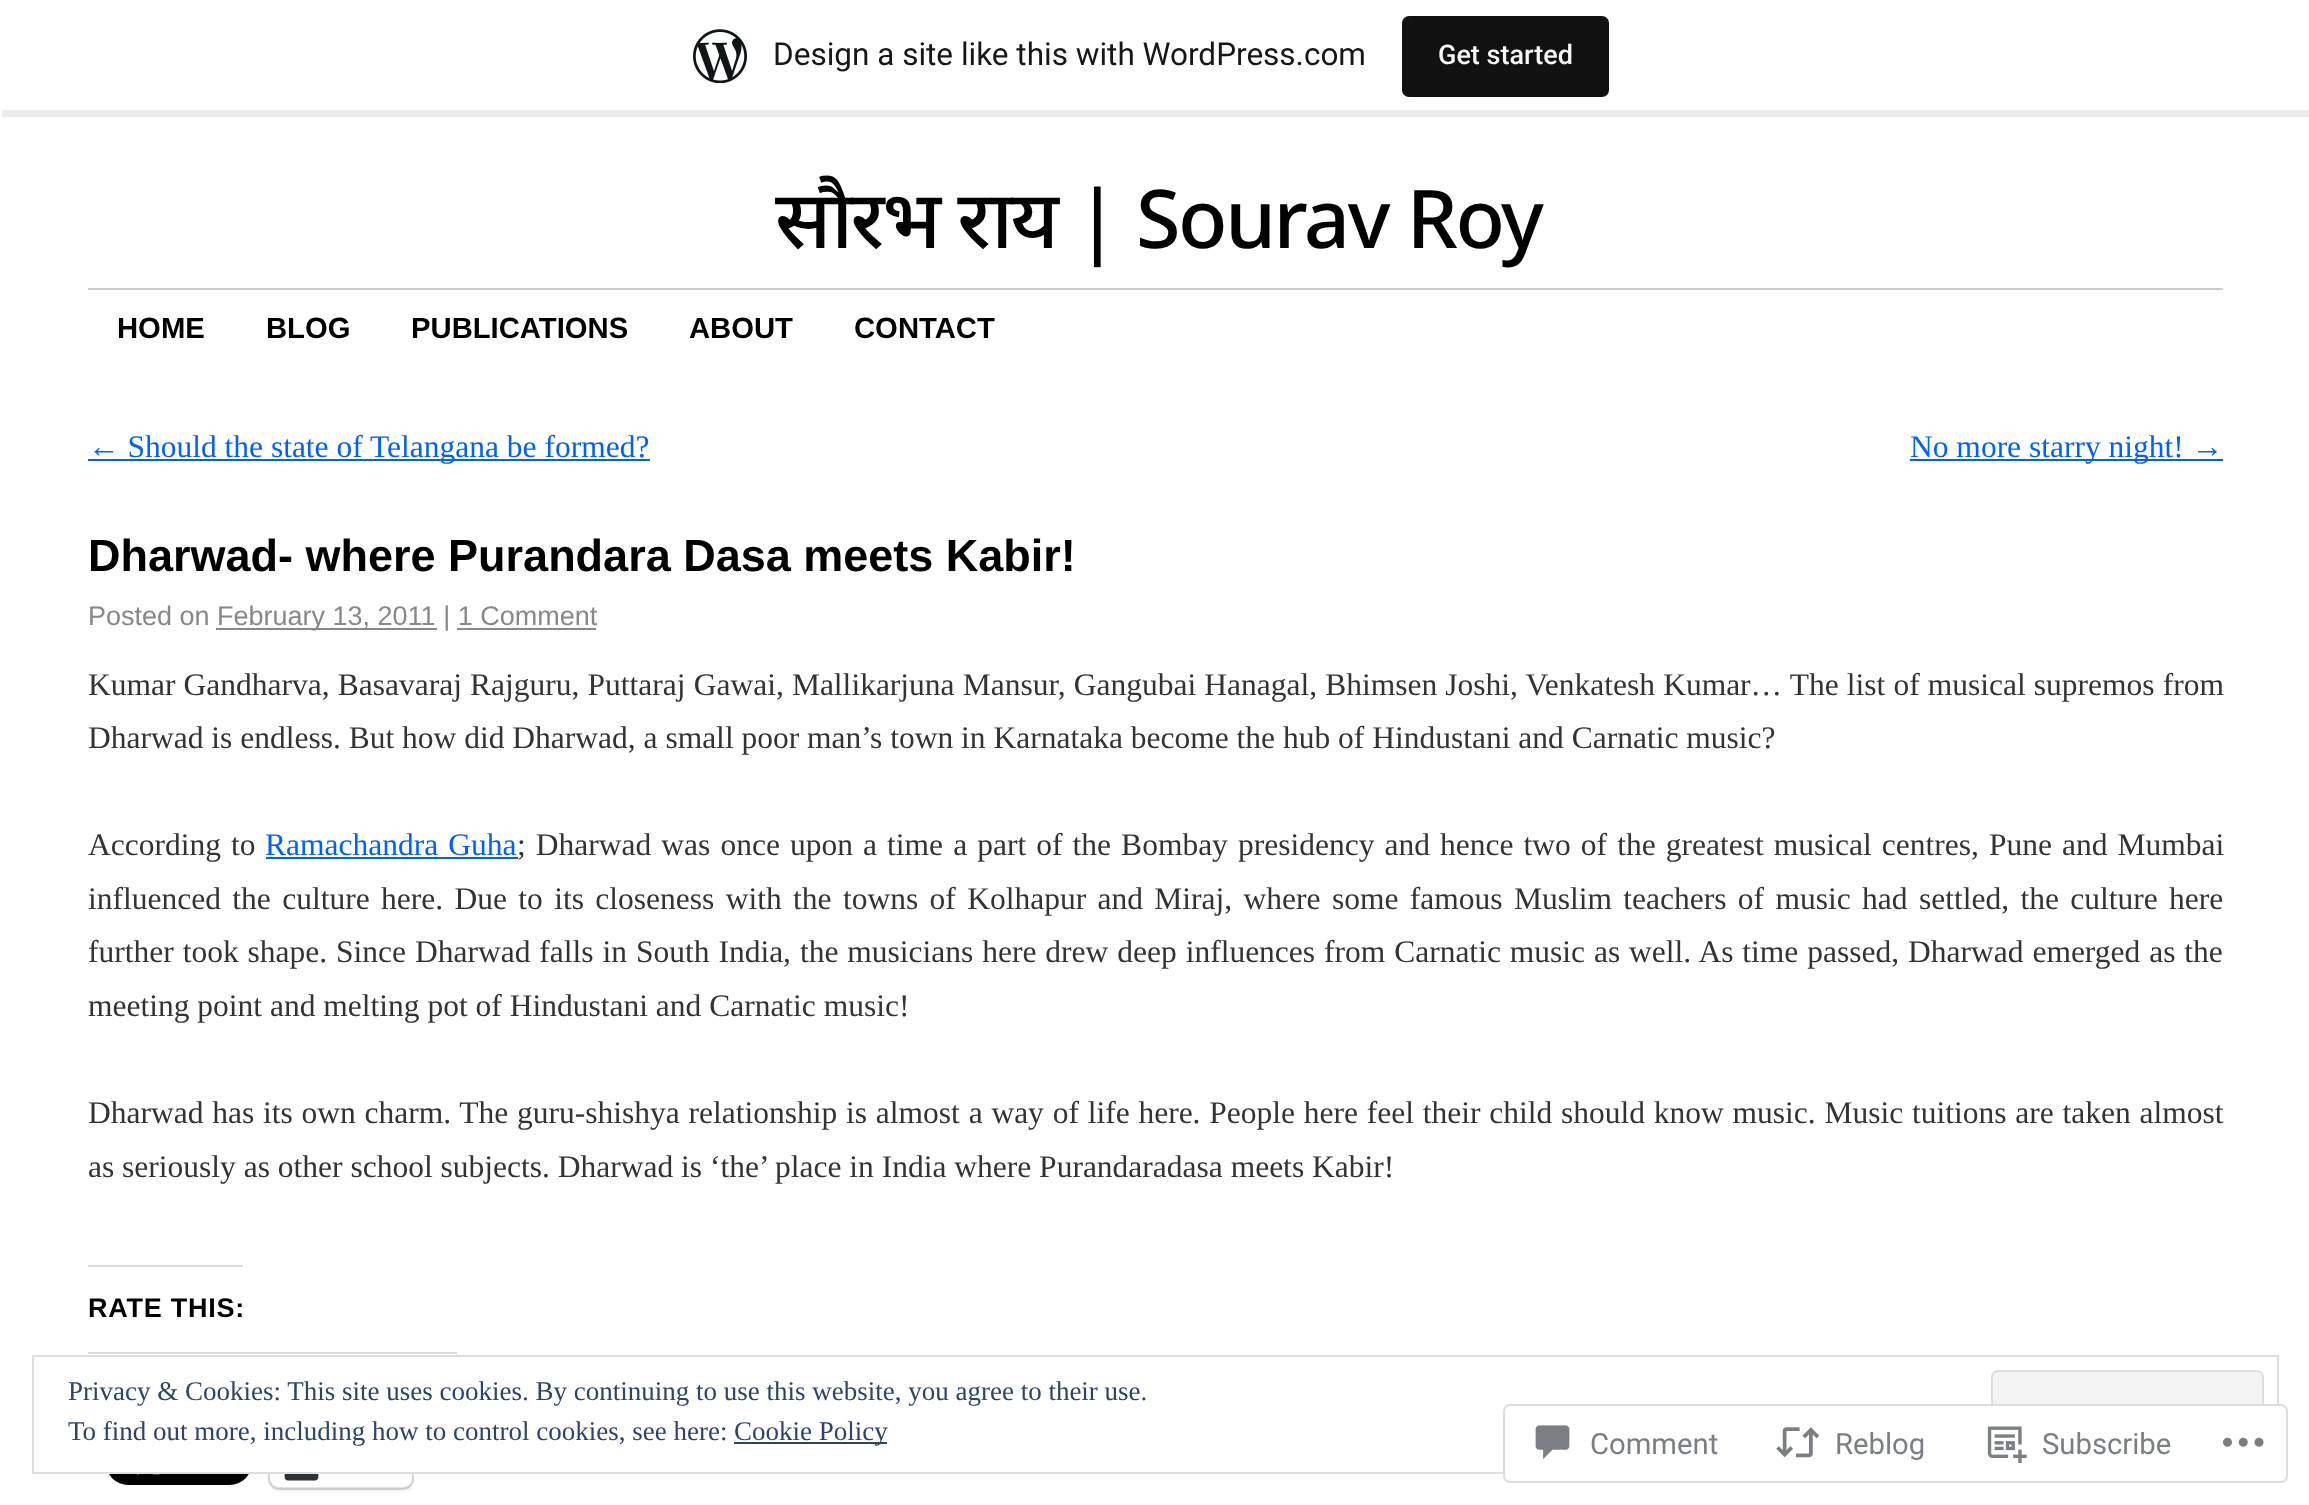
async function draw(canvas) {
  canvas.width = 2309
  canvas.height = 1505
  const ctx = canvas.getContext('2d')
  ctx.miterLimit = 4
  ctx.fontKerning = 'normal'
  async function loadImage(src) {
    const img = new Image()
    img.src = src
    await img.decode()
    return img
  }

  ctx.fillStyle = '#fff'
  ctx.fillRect(0, 0, 2309, 1505)
  ctx.fillStyle = '#00000014'
  ctx.beginPath()
  ctx.moveTo(2, 110)
  ctx.lineTo(2, 117)
  ctx.lineTo(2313, 117)
  ctx.lineTo(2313, 7)
  ctx.lineTo(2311, 7)
  ctx.lineTo(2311, 110)
  ctx.closePath()
  ctx.fill()
  ctx.drawImage(await loadImage('image0.png'), 693, 29, 54, 54)
  ctx.font = '31.5px Roboto'
  ctx.fillStyle = '#171717'
  ctx.fillText('Design a site like this with WordPress.com', 773, 65)
  ctx.fillStyle = '#111'
  ctx.beginPath()
  ctx.roundRect(1402, 16, 207, 81, 7)
  ctx.fill()
  ctx.font = '500 27px Roboto'
  ctx.fillStyle = '#f6f7f7'
  ctx.fillText('Get started', 1438, 64)
  ctx.letterSpacing = '-2.4px'
  ctx.font = '500 81px Noto Sans'
  ctx.fillStyle = '#000'
  ctx.fillText('सौरभ राय | Sourav Roy', 775, 248)
  ctx.fillStyle = '#ccc'
  ctx.fillRect(88, 288, 2135, 2)
  ctx.letterSpacing = '0px'
  ctx.font = 'bold 29.25px Liberation Sans'
  ctx.fillStyle = '#000'
  ctx.fillText('HOME', 117, 338)
  ctx.fillText('BLOG', 266, 338)
  ctx.fillText('PUBLICATIONS', 411, 338)
  ctx.fillText('ABOUT', 689, 338)
  ctx.fillText('CONTACT', 854, 338)
  ctx.fillStyle = '#0060ff'
  ctx.fillRect(88, 459, 562, 2)
  ctx.font = '31.5px Liberation Serif'
  ctx.fillText('← Should the state of Telangana be formed?', 88, 457)
  ctx.fillRect(1910, 459, 313, 2)
  ctx.fillText('No more starry night! →', 1910, 457)
  ctx.font = 'bold 45px Liberation Sans'
  ctx.fillStyle = '#000'
  ctx.fillText('Dharwad- where Purandara Dasa meets Kabir!', 88, 571)
  ctx.font = '27px Liberation Sans'
  ctx.fillStyle = '#888'
  ctx.fillText('Posted on', 88, 625)
  ctx.fillRect(216, 628, 221, 2)
  ctx.fillText('February 13, 2011 | 1 Comment', 217, 625)
  ctx.fillRect(457, 628, 139, 2)
  ctx.wordSpacing = '0.25px'
  ctx.font = '31.5px Liberation Serif'
  ctx.fillStyle = '#333'
  ctx.fillText('Kumar Gandharva, Basavaraj Rajguru, Puttaraj Gawai, Mallikarjuna Mansur, Gangubai Hanagal, Bhimsen Joshi, Venkatesh Kumar… The list of musical supremos from', 88, 695)
  ctx.wordSpacing = '0px'
  ctx.fillText('Dharwad is endless. But how did Dharwad, a small poor man’s town in Karnataka become the hub of Hindustani and Carnatic music?', 88, 748)
  ctx.wordSpacing = '2.2px'
  ctx.fillText('According to', 88, 855)
  ctx.fillStyle = '#0060ff'
  ctx.fillText('Ramachandra Guha', 265, 855)
  ctx.fillRect(266, 857, 252, 2)
  ctx.fillStyle = '#333'
  ctx.fillText('; Dharwad was once upon a time a part of the Bombay presidency and hence two of the greatest musical centres, Pune and Mumbai', 517, 855)
  ctx.wordSpacing = '3.5px'
  ctx.fillText('influenced the culture here. Due to its closeness with the towns of Kolhapur and Miraj, where some famous Muslim teachers of music had settled, the culture here', 88, 909)
  ctx.wordSpacing = '1.05px'
  ctx.fillText('further took shape. Since Dharwad falls in South India, the musicians here drew deep influences from Carnatic music as well. As time passed, Dharwad emerged as the', 88, 962)
  ctx.wordSpacing = '0px'
  ctx.fillText('meeting point and melting pot of Hindustani and Carnatic music!', 88, 1016)
  ctx.wordSpacing = '0.9px'
  ctx.fillText('Dharwad has its own charm. The guru-shishya relationship is almost a way of life here. People here feel their child should know music. Music tuitions are taken almost', 88, 1123)
  ctx.wordSpacing = '0px'
  ctx.fillText('as seriously as other school subjects. Dharwad is ‘the’ place in India where Purandaradasa meets Kabir!', 88, 1177)
  ctx.fillStyle = '#dcdcde'
  ctx.fillRect(88, 1265, 155, 2)
  ctx.letterSpacing = '0.75px'
  ctx.font = 'bold 27px Liberation Sans'
  ctx.fillStyle = '#000'
  ctx.fillText('RATE THIS:', 88, 1317)
  ctx.fillStyle = '#dcdcde'
  ctx.fillRect(88, 1352, 369, 2)
  ctx.drawImage(await loadImage('image1.png'), 109, 1474, 140, 11)
  ctx.beginPath()
  ctx.roundRect(269, 1439, 144, 50, 10)
  ctx.strokeStyle = '#e0e0e0'
  ctx.lineWidth = 2
  ctx.stroke()
  ctx.fillStyle = '#0000001f'
  ctx.filter = 'blur(2px)'
  ctx.beginPath()
  ctx.roundRect(270, 1442, 142, 48, 9)
  ctx.fill()
  ctx.filter = 'none'
  ctx.fillStyle = '#fff'
  ctx.beginPath()
  ctx.roundRect(270, 1440, 142, 47, 9)
  ctx.fill()
  ctx.drawImage(await loadImage('image2.png'), 284, 1474, 35, 7)
  ctx.fillRect(267, 1438, 148, 34)
  ctx.strokeStyle = '#dedede'
  ctx.strokeRect(33, 1356, 2245, 117)
  ctx.letterSpacing = '0px'
  ctx.font = '27px Liberation Serif'
  ctx.fillStyle = '#2e4467'
  ctx.fillText('Privacy & Cookies: This site uses cookies. By continuing to use this website, you agree to their use.', 68, 1400)
  ctx.fillStyle = '#f3f3f3'
  ctx.beginPath()
  ctx.roundRect(1992, 1371, 271, 86, 6)
  ctx.fill()
  ctx.stroke()
  ctx.fillStyle = '#2e4467'
  ctx.fillText('To find out more, including how to control cookies, see here:', 68, 1440)
  ctx.fillRect(734, 1442, 153, 2)
  ctx.fillText('Cookie Policy', 734, 1440)
  ctx.fillStyle = '#fffffffa'
  ctx.beginPath()
  ctx.roundRect(1503, 1404, 785, 79, 7)
  ctx.fill()
  ctx.beginPath()
  ctx.roundRect(1504, 1405, 783, 77, 6)
  ctx.strokeStyle = '#dcdcdefa'
  ctx.stroke()
  ctx.drawImage(await loadImage('image3.png'), 1535, 1425, 35, 34)
  ctx.font = '29.25px Roboto'
  ctx.fillStyle = '#7b7f85'
  ctx.fillText('Comment', 1590, 1454)
  ctx.drawImage(await loadImage('image4.png'), 1776, 1427, 44, 31)
  ctx.fillText('Reblog', 1835, 1454)
  ctx.drawImage(await loadImage('image5.png'), 1987, 1426, 40, 38)
  ctx.fillText('Subscribe', 2042, 1454)
  ctx.drawImage(await loadImage('image6.png'), 2223, 1437, 41, 10)
}

draw(document.querySelector('canvas'))
